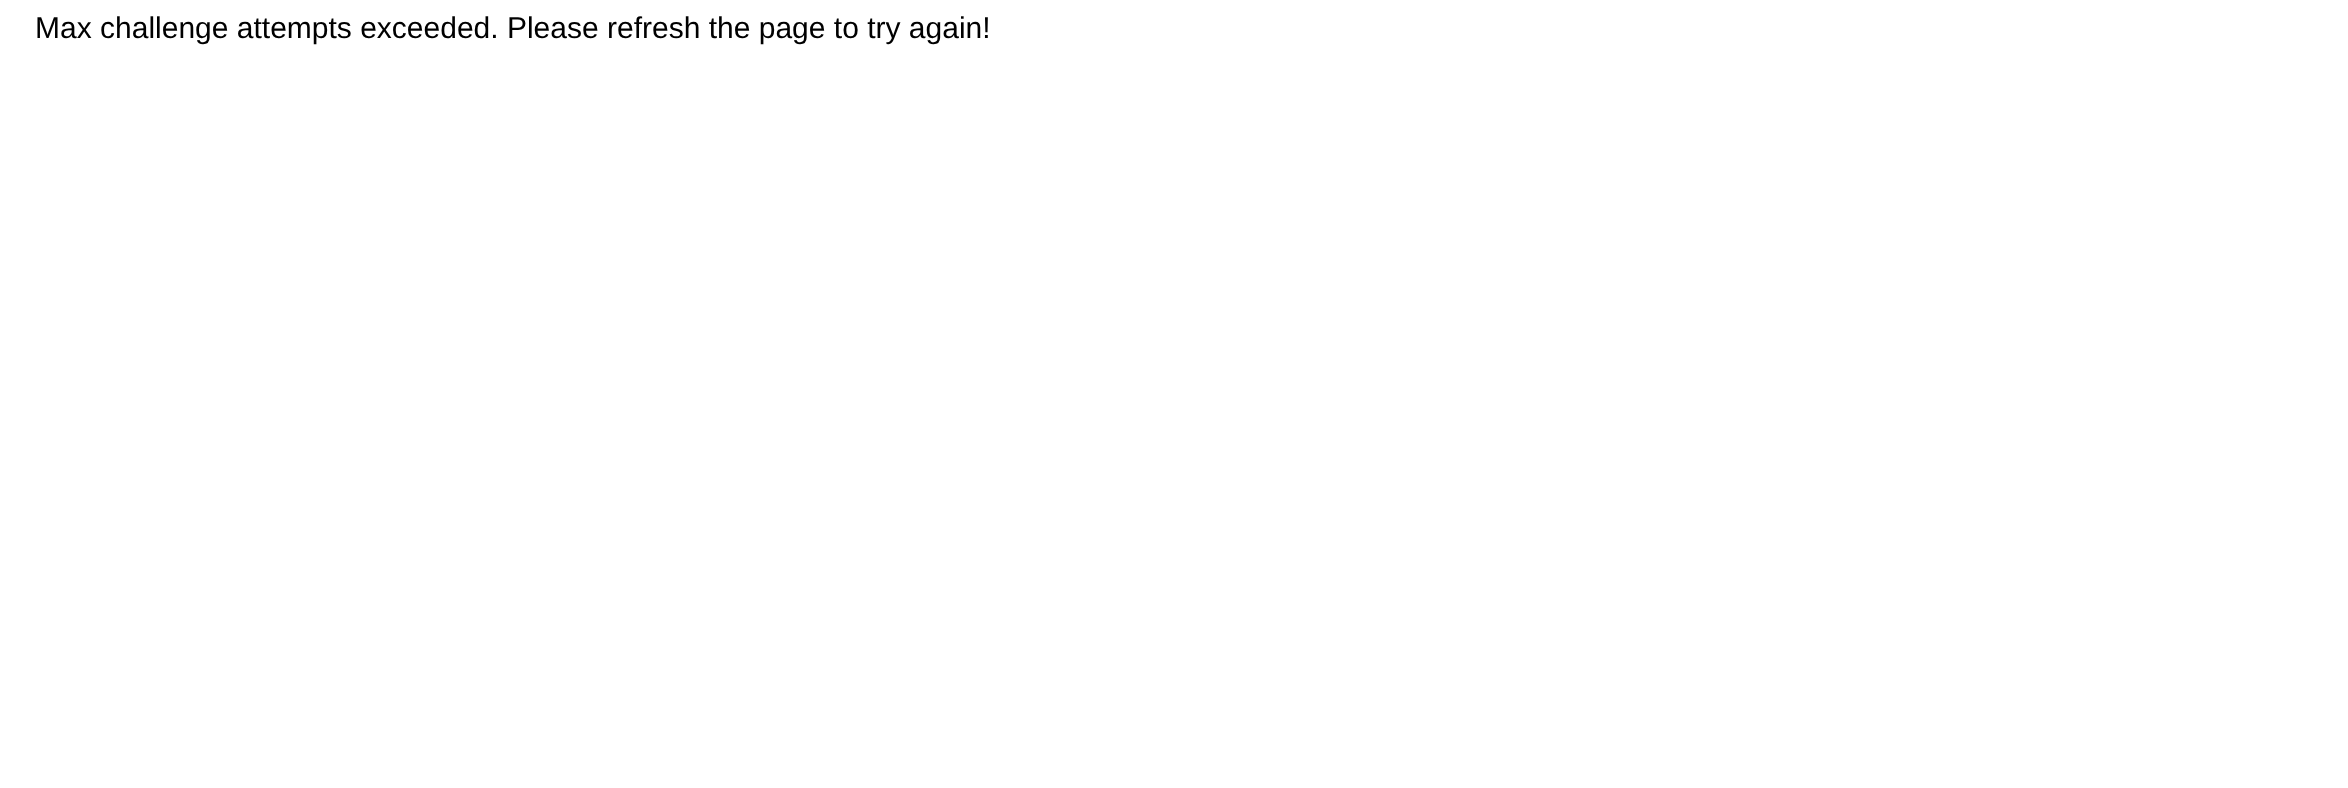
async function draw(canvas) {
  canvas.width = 2348
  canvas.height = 788
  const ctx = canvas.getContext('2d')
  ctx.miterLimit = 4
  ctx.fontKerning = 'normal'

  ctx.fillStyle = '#fff'
  ctx.fillRect(0, 0, 2348, 788)
  ctx.font = '30px Liberation Sans'
  ctx.fillStyle = '#000'
  ctx.fillText('Max challenge attempts exceeded. Please refresh the page to try again!', 35, 38)
}

draw(document.querySelector('canvas'))
